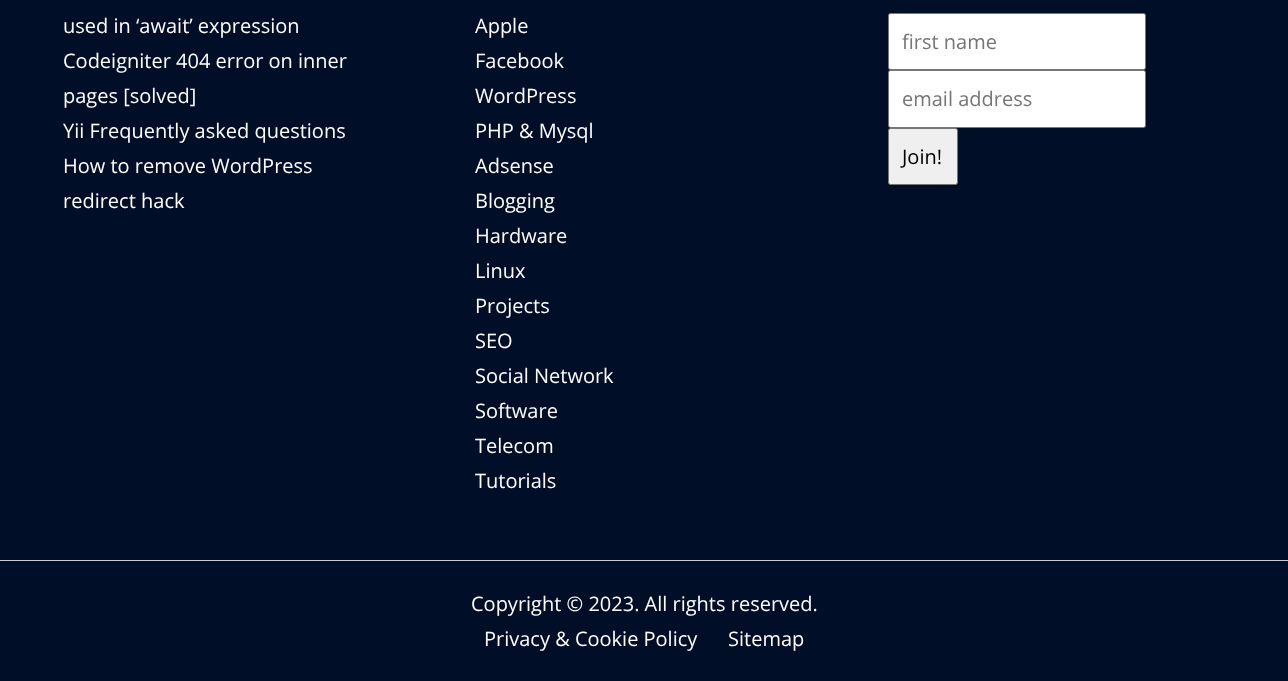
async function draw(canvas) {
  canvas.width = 1288
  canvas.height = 681
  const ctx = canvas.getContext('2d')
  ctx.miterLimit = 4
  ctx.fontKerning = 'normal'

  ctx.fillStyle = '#010e28'
  ctx.fillRect(0, 0, 1288, 681)
  ctx.font = '20px Open Sans'
  ctx.fillStyle = '#fff'
  ctx.fillText('used in ‘await’ expression', 63, 33)
  ctx.fillText('Codeigniter 404 error on inner', 63, 68)
  ctx.fillText('pages [solved]', 63, 103)
  ctx.fillText('Yii Frequently asked questions', 63, 138)
  ctx.fillText('How to remove WordPress', 63, 173)
  ctx.fillText('redirect hack', 63, 208)
  ctx.fillText('Apple', 475, 33)
  ctx.fillText('Facebook', 475, 68)
  ctx.fillText('WordPress', 475, 103)
  ctx.fillText('PHP & Mysql', 475, 138)
  ctx.fillText('Adsense', 475, 173)
  ctx.fillText('Blogging', 475, 208)
  ctx.fillText('Hardware', 475, 243)
  ctx.fillText('Linux', 475, 278)
  ctx.fillText('Projects', 475, 313)
  ctx.fillText('SEO', 475, 348)
  ctx.fillText('Social Network', 475, 383)
  ctx.fillText('Software', 475, 418)
  ctx.fillText('Telecom', 475, 453)
  ctx.fillText('Tutorials', 475, 488)
  ctx.beginPath()
  ctx.roundRect(888.5, 13.5, 257, 56, 2)
  ctx.fill()
  ctx.strokeStyle = '#767676'
  ctx.stroke()
  ctx.fillStyle = '#757575'
  ctx.fillText('first name', 902, 49)
  ctx.fillStyle = '#fff'
  ctx.beginPath()
  ctx.roundRect(888.5, 70.5, 257, 57, 2)
  ctx.fill()
  ctx.stroke()
  ctx.fillStyle = '#757575'
  ctx.fillText('email address', 902, 106)
  ctx.fillStyle = '#efefef'
  ctx.beginPath()
  ctx.roundRect(888.5, 128.5, 69, 56, 2)
  ctx.fill()
  ctx.stroke()
  ctx.fillStyle = '#000'
  ctx.fillText('Join!', 902, 164)
  ctx.fillStyle = '#ccc'
  ctx.fillRect(0, 560, 1288, 1)
  ctx.fillStyle = '#fff'
  ctx.fillText('Copyright © 2023. All rights reserved.', 471, 611)
  ctx.fillText('Privacy & Cookie Policy', 484, 646)
  ctx.fillText('Sitemap', 728, 646)
}

draw(document.querySelector('canvas'))
